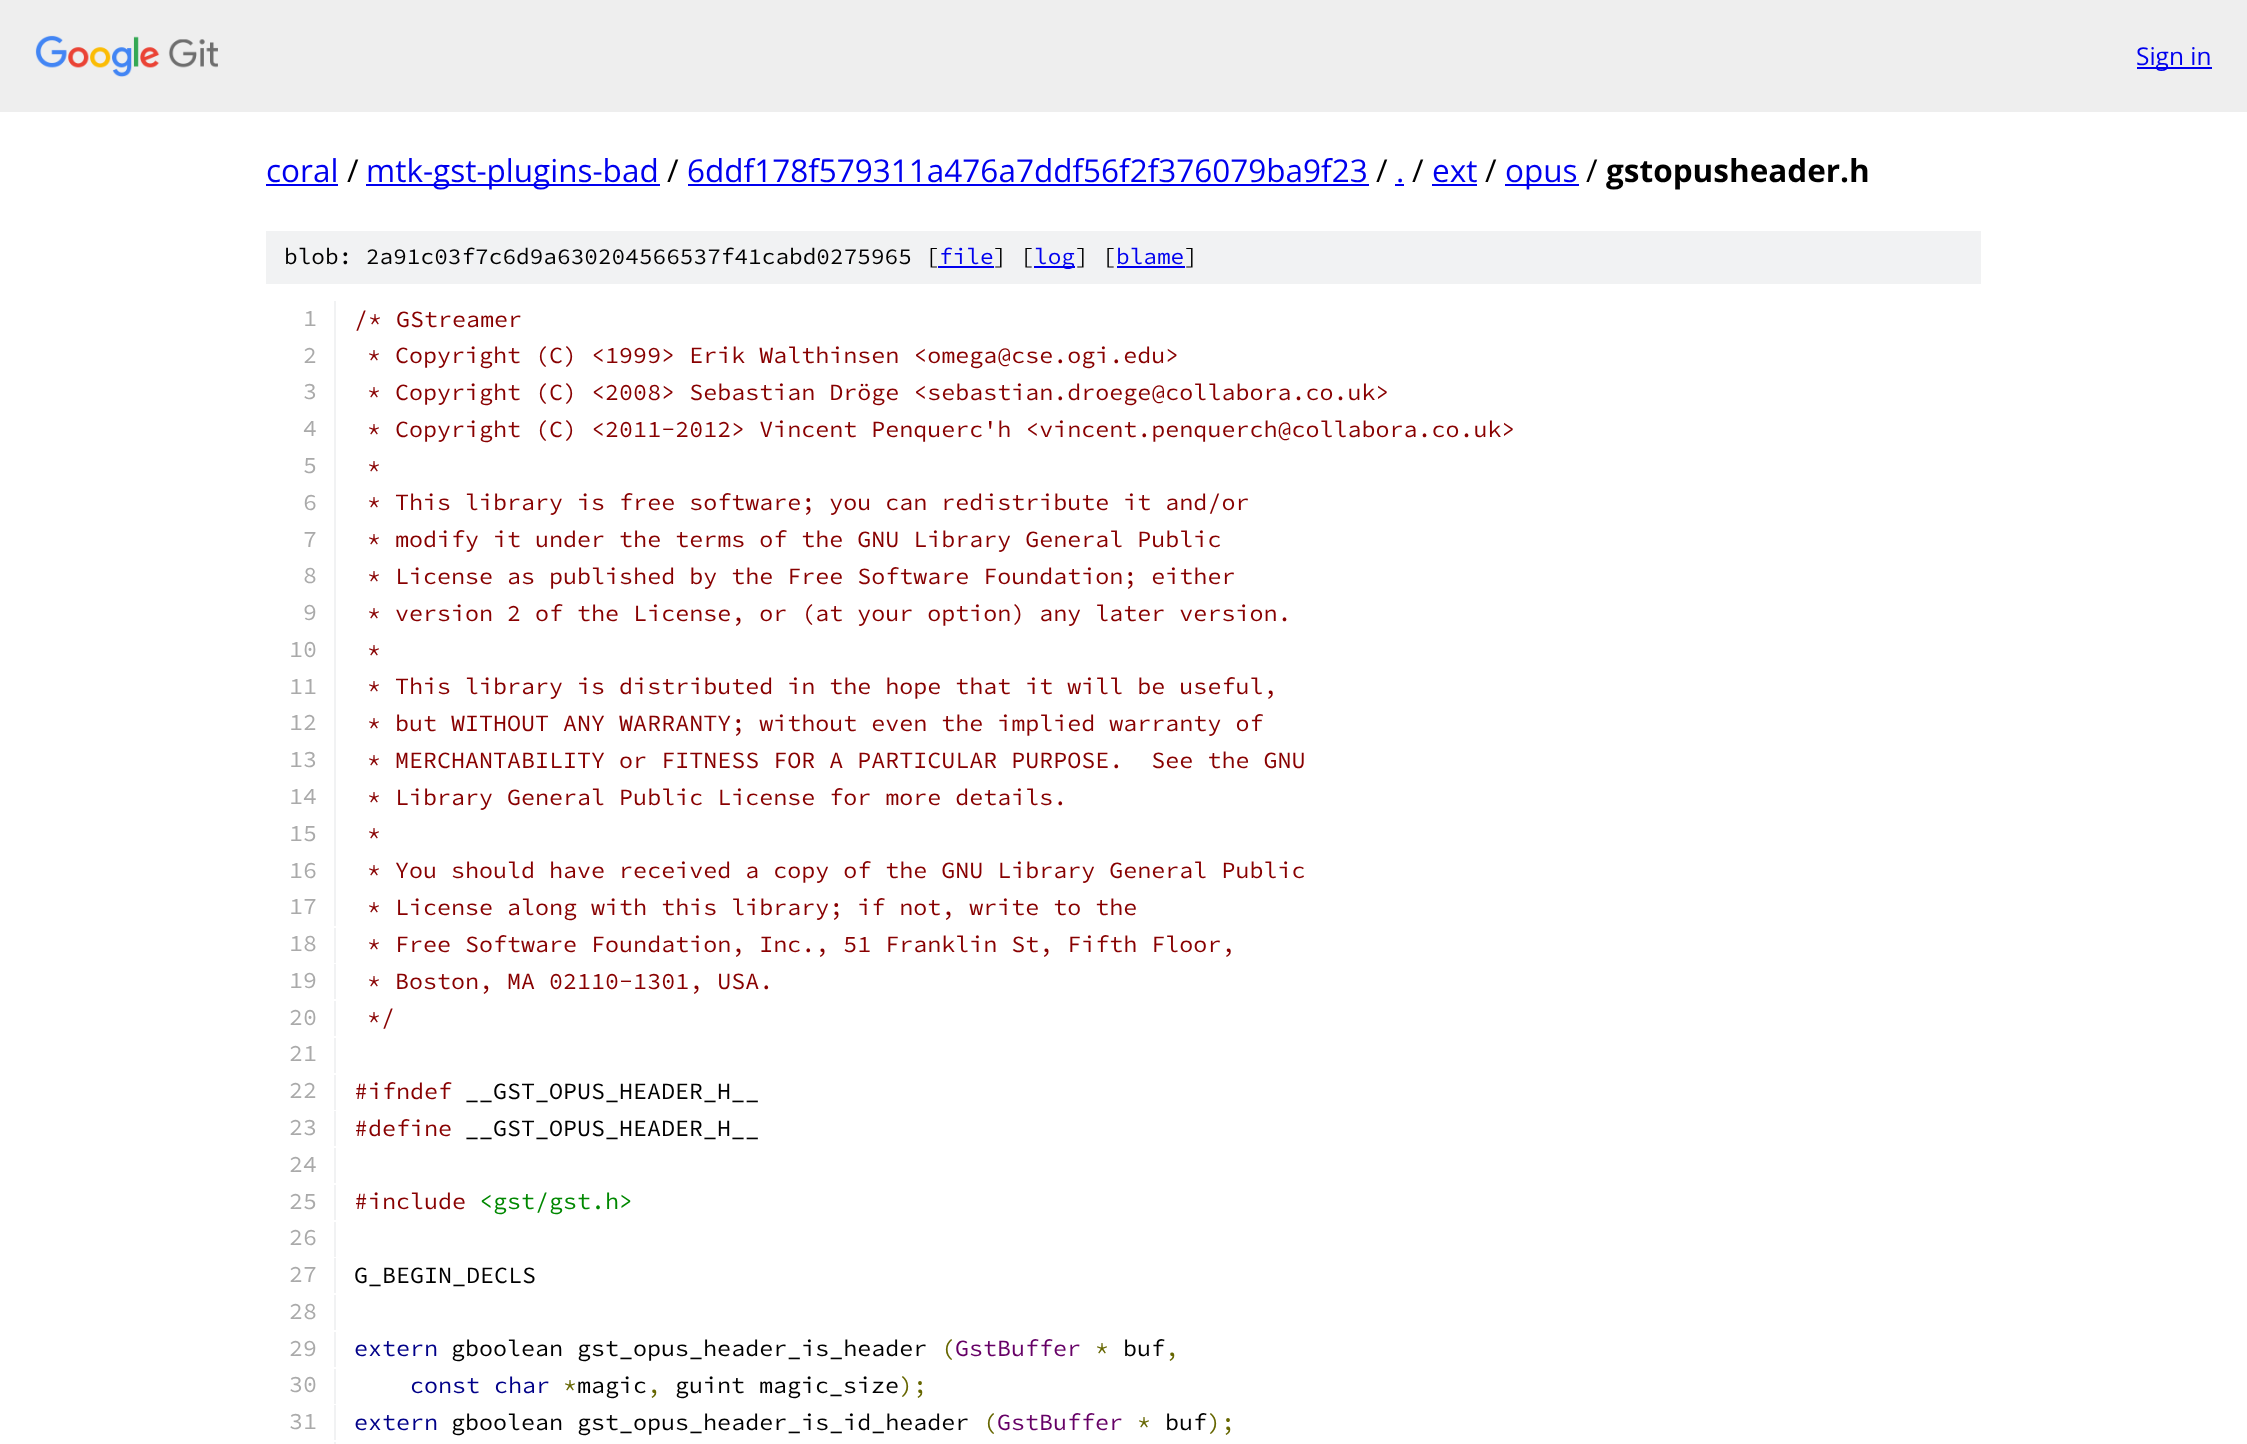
async function draw(canvas) {
  canvas.width = 2247
  canvas.height = 1444
  const ctx = canvas.getContext('2d')
  ctx.miterLimit = 4
  ctx.fontKerning = 'normal'
  async function loadImage(src) {
    const img = new Image()
    img.src = src
    await img.decode()
    return img
  }

  ctx.fillStyle = '#fff'
  ctx.fillRect(0, 0, 2247, 1444)
  ctx.fillStyle = '#eee'
  ctx.fillRect(0, 0, 2247, 112)
  ctx.drawImage(await loadImage('image0.png'), 35, 35, 183, 42)
  ctx.fillStyle = '#00e'
  ctx.fillRect(2137, 67, 75, 2)
  ctx.font = '24.5px Open Sans'
  ctx.fillText('Sign in', 2136, 65)
  ctx.font = '31.5px Open Sans'
  ctx.fillText('coral', 266, 182)
  ctx.fillRect(266, 184, 72, 2)
  ctx.fillStyle = '#000'
  ctx.fillText('/', 347, 182)
  ctx.fillStyle = '#00e'
  ctx.fillRect(366, 184, 294, 2)
  ctx.fillText('mtk-gst-plugins-bad', 366, 182)
  ctx.fillStyle = '#000'
  ctx.fillText('/', 667, 182)
  ctx.fillStyle = '#00e'
  ctx.fillText('6ddf178f579311a476a7ddf56f2f376079ba9f23', 687, 182)
  ctx.fillRect(688, 184, 681, 2)
  ctx.fillStyle = '#000'
  ctx.fillText('/', 1376, 182)
  ctx.fillStyle = '#00e'
  ctx.fillText('.', 1396, 182)
  ctx.fillRect(1395, 184, 9, 2)
  ctx.fillStyle = '#000'
  ctx.fillText('/', 1412, 182)
  ctx.fillStyle = '#00e'
  ctx.fillText('ext', 1432, 182)
  ctx.fillRect(1432, 184, 45, 2)
  ctx.fillStyle = '#000'
  ctx.fillText('/', 1485, 182)
  ctx.fillStyle = '#00e'
  ctx.fillRect(1505, 184, 74, 2)
  ctx.fillText('opus', 1505, 182)
  ctx.fillStyle = '#000'
  ctx.fillText('/', 1586, 182)
  ctx.font = 'bold 31.5px Open Sans'
  ctx.fillText('gstopusheader.h', 1606, 182)
  ctx.fillStyle = '#f1f2f3'
  ctx.fillRect(266, 231, 1715, 53)
  ctx.font = '200 22.75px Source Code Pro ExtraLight'
  ctx.fillStyle = '#000'
  ctx.fillText('blob: 2a91c03f7c6d9a630204566537f41cabd0275965 [', 284, 264)
  ctx.fillStyle = '#00e'
  ctx.fillText('file', 939, 264)
  ctx.fillRect(938, 266, 56, 2)
  ctx.fillStyle = '#000'
  ctx.fillText('] [', 993, 264)
  ctx.fillStyle = '#00e'
  ctx.fillRect(1034, 266, 41, 2)
  ctx.fillText('log', 1034, 264)
  ctx.fillStyle = '#000'
  ctx.fillText('] [', 1075, 264)
  ctx.fillStyle = '#00e'
  ctx.fillText('blame', 1116, 264)
  ctx.fillRect(1117, 266, 68, 2)
  ctx.fillStyle = '#000'
  ctx.fillText(']', 1184, 264)
  ctx.fillStyle = '#f1f2f3'
  ctx.fillRect(334, 301, 2, 625)
  ctx.font = '200 23.35px Source Code Pro ExtraLight'
  ctx.fillStyle = '#aaa'
  ctx.fillText('1', 303, 326)
  ctx.fillStyle = '#800'
  ctx.fillText('/* GStreamer', 354, 327)
  ctx.fillStyle = '#aaa'
  ctx.fillText('2', 303, 363)
  ctx.fillStyle = '#800'
  ctx.fillText('* Copyright (C) <1999> Erik Walthinsen <omega@cse.ogi.edu>', 367, 363)
  ctx.fillStyle = '#aaa'
  ctx.fillText('3', 303, 399)
  ctx.fillStyle = '#800'
  ctx.fillText('* Copyright (C) <2008> Sebastian Dröge <sebastian.droege@collabora.co.uk>', 367, 400)
  ctx.fillStyle = '#aaa'
  ctx.fillText('4', 303, 436)
  ctx.fillStyle = '#800'
  ctx.fillText('* Copyright (C) <2011-2012> Vincent Penquerc\'h <vincent.penquerch@collabora.co.uk>', 367, 437)
  ctx.fillStyle = '#aaa'
  ctx.fillText('5', 303, 473)
  ctx.fillStyle = '#800'
  ctx.fillText('*', 367, 474)
  ctx.fillStyle = '#aaa'
  ctx.fillText('6', 303, 510)
  ctx.fillStyle = '#800'
  ctx.fillText('* This library is free software; you can redistribute it and/or', 367, 510)
  ctx.fillStyle = '#aaa'
  ctx.fillText('7', 303, 547)
  ctx.fillStyle = '#800'
  ctx.fillText('* modify it under the terms of the GNU Library General Public', 367, 547)
  ctx.fillStyle = '#aaa'
  ctx.fillText('8', 303, 583)
  ctx.fillStyle = '#800'
  ctx.fillText('* License as published by the Free Software Foundation; either', 367, 584)
  ctx.fillStyle = '#aaa'
  ctx.fillText('9', 303, 620)
  ctx.fillStyle = '#800'
  ctx.fillText('* version 2 of the License, or (at your option) any later version.', 367, 621)
  ctx.fillStyle = '#aaa'
  ctx.fillText('10', 289, 657)
  ctx.fillStyle = '#800'
  ctx.fillText('*', 367, 658)
  ctx.fillStyle = '#aaa'
  ctx.fillText('11', 289, 694)
  ctx.fillStyle = '#800'
  ctx.fillText('* This library is distributed in the hope that it will be useful,', 367, 694)
  ctx.fillStyle = '#aaa'
  ctx.fillText('12', 289, 730)
  ctx.fillStyle = '#800'
  ctx.fillText('* but WITHOUT ANY WARRANTY; without even the implied warranty of', 367, 731)
  ctx.fillStyle = '#aaa'
  ctx.fillText('13', 289, 767)
  ctx.fillStyle = '#800'
  ctx.fillText('* MERCHANTABILITY or FITNESS FOR A PARTICULAR PURPOSE.  See the GNU', 367, 768)
  ctx.fillStyle = '#aaa'
  ctx.fillText('14', 289, 804)
  ctx.fillStyle = '#800'
  ctx.fillText('* Library General Public License for more details.', 367, 805)
  ctx.fillStyle = '#aaa'
  ctx.fillText('15', 289, 841)
  ctx.fillStyle = '#800'
  ctx.fillText('*', 367, 841)
  ctx.fillStyle = '#aaa'
  ctx.fillText('16', 289, 878)
  ctx.fillStyle = '#800'
  ctx.fillText('* You should have received a copy of the GNU Library General Public', 367, 878)
  ctx.fillStyle = '#aaa'
  ctx.fillText('17', 289, 914)
  ctx.fillStyle = '#800'
  ctx.fillText('* License along with this library; if not, write to the', 367, 915)
  ctx.fillStyle = '#f1f2f3'
  ctx.fillRect(334, 928, 2, 35)
  ctx.fillStyle = '#aaa'
  ctx.fillText('18', 289, 951)
  ctx.fillStyle = '#800'
  ctx.fillText('* Free Software Foundation, Inc., 51 Franklin St, Fifth Floor,', 367, 952)
  ctx.fillStyle = '#f1f2f3'
  ctx.fillRect(334, 964, 2, 35)
  ctx.fillStyle = '#aaa'
  ctx.fillText('19', 289, 988)
  ctx.fillStyle = '#800'
  ctx.fillText('* Boston, MA 02110-1301, USA.', 367, 989)
  ctx.fillStyle = '#f1f2f3'
  ctx.fillRect(334, 1001, 2, 35)
  ctx.fillStyle = '#aaa'
  ctx.fillText('20', 289, 1025)
  ctx.fillStyle = '#800'
  ctx.fillText('*/', 367, 1025)
  ctx.fillStyle = '#f1f2f3'
  ctx.fillRect(334, 1038, 2, 35)
  ctx.fillStyle = '#aaa'
  ctx.fillText('21', 289, 1061)
  ctx.fillStyle = '#f1f2f3'
  ctx.fillRect(334, 1075, 2, 35)
  ctx.fillStyle = '#aaa'
  ctx.fillText('22', 289, 1098)
  ctx.fillStyle = '#800'
  ctx.fillText('#ifndef', 354, 1099)
  ctx.fillStyle = '#000'
  ctx.fillText('__GST_OPUS_HEADER_H__', 465, 1099)
  ctx.fillStyle = '#f1f2f3'
  ctx.fillRect(334, 1111, 2, 35)
  ctx.fillStyle = '#aaa'
  ctx.fillText('23', 289, 1135)
  ctx.fillStyle = '#800'
  ctx.fillText('#define', 354, 1136)
  ctx.fillStyle = '#000'
  ctx.fillText('__GST_OPUS_HEADER_H__', 465, 1136)
  ctx.fillStyle = '#f1f2f3'
  ctx.fillRect(334, 1148, 2, 35)
  ctx.fillStyle = '#aaa'
  ctx.fillText('24', 289, 1172)
  ctx.fillStyle = '#f1f2f3'
  ctx.fillRect(334, 1185, 2, 35)
  ctx.fillStyle = '#aaa'
  ctx.fillText('25', 289, 1209)
  ctx.fillStyle = '#800'
  ctx.fillText('#include', 354, 1209)
  ctx.fillStyle = '#080'
  ctx.fillText('<gst/gst.h>', 479, 1209)
  ctx.fillStyle = '#f1f2f3'
  ctx.fillRect(334, 1222, 2, 35)
  ctx.fillStyle = '#aaa'
  ctx.fillText('26', 289, 1245)
  ctx.fillStyle = '#f1f2f3'
  ctx.fillRect(334, 1258, 2, 35)
  ctx.fillStyle = '#aaa'
  ctx.fillText('27', 289, 1282)
  ctx.fillStyle = '#000'
  ctx.fillText('G_BEGIN_DECLS', 354, 1283)
  ctx.fillStyle = '#f1f2f3'
  ctx.fillRect(334, 1295, 2, 35)
  ctx.fillStyle = '#aaa'
  ctx.fillText('28', 289, 1319)
  ctx.fillStyle = '#f1f2f3'
  ctx.fillRect(334, 1332, 2, 35)
  ctx.fillStyle = '#aaa'
  ctx.fillText('29', 289, 1356)
  ctx.fillStyle = '#008'
  ctx.fillText('extern', 354, 1356)
  ctx.fillStyle = '#000'
  ctx.fillText('gboolean gst_opus_header_is_header', 451, 1356)
  ctx.fillStyle = '#660'
  ctx.fillText('(', 941, 1356)
  ctx.fillStyle = '#606'
  ctx.fillText('GstBuffer', 955, 1356)
  ctx.fillStyle = '#660'
  ctx.fillText('*', 1095, 1356)
  ctx.fillStyle = '#000'
  ctx.fillText('buf', 1123, 1356)
  ctx.fillStyle = '#660'
  ctx.fillText(',', 1165, 1356)
  ctx.fillStyle = '#f1f2f3'
  ctx.fillRect(334, 1369, 2, 35)
  ctx.fillStyle = '#aaa'
  ctx.fillText('30', 289, 1392)
  ctx.fillStyle = '#008'
  ctx.fillText('const char', 410, 1393)
  ctx.fillStyle = '#660'
  ctx.fillText('*', 563, 1393)
  ctx.fillStyle = '#000'
  ctx.fillText('magic', 577, 1393)
  ctx.fillText('guint magic_size', 675, 1393)
  ctx.fillStyle = '#660'
  ctx.fillText(');', 899, 1393)
  ctx.fillText(',', 647, 1393)
  ctx.fillStyle = '#f1f2f3'
  ctx.fillRect(334, 1405, 2, 35)
  ctx.fillStyle = '#aaa'
  ctx.fillText('31', 289, 1429)
  ctx.fillStyle = '#008'
  ctx.fillText('extern', 354, 1430)
  ctx.fillStyle = '#000'
  ctx.fillText('gboolean gst_opus_header_is_id_header', 451, 1430)
  ctx.fillStyle = '#660'
  ctx.fillText('(', 983, 1430)
  ctx.fillStyle = '#606'
  ctx.fillText('GstBuffer', 997, 1430)
  ctx.fillStyle = '#660'
  ctx.fillText('*', 1137, 1430)
  ctx.fillStyle = '#000'
  ctx.fillText('buf', 1165, 1430)
  ctx.fillStyle = '#660'
  ctx.fillText(');', 1207, 1430)
  ctx.fillStyle = '#f1f2f3'
  ctx.fillRect(334, 1442, 2, 2)
}

draw(document.querySelector('canvas'))
